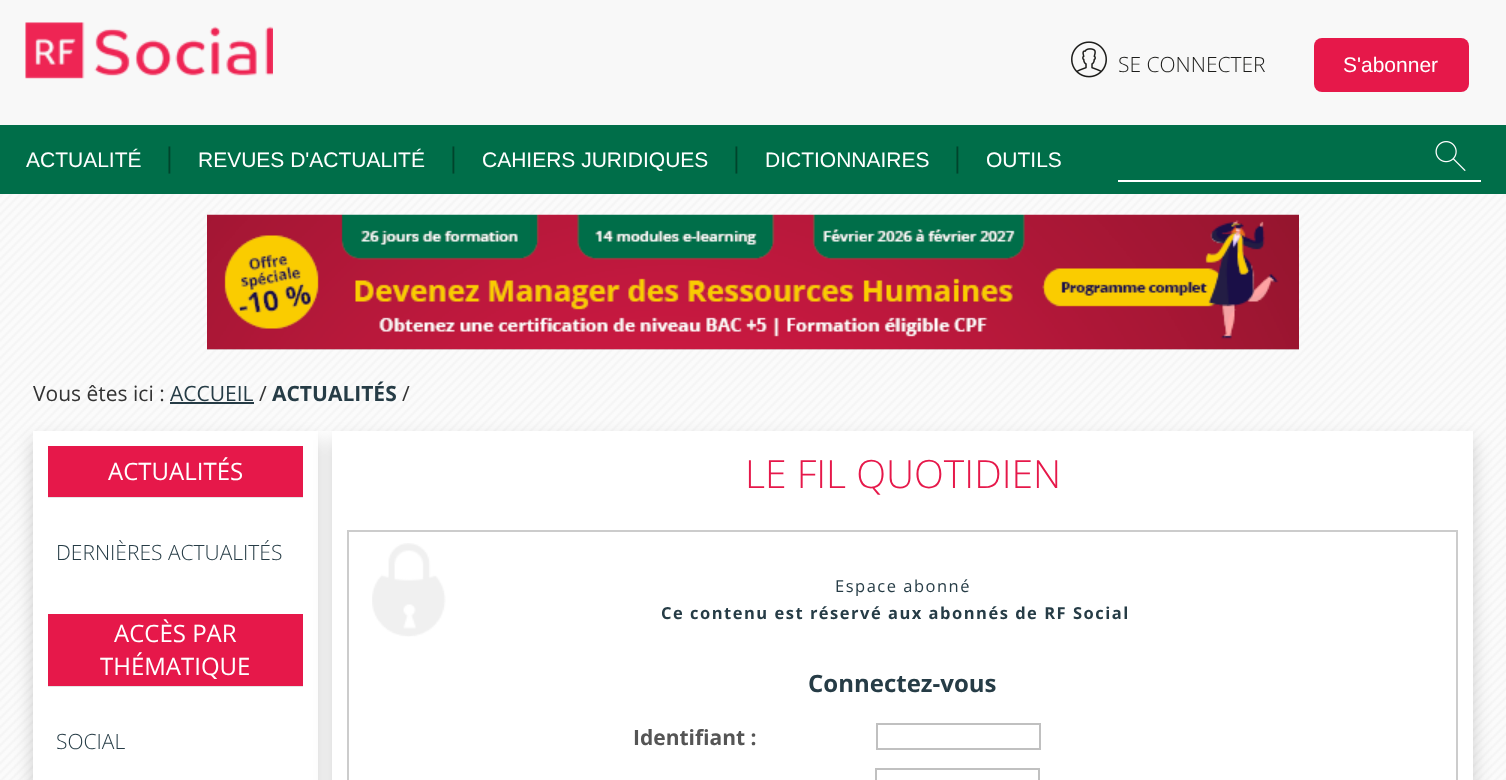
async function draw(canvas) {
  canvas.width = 1506
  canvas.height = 780
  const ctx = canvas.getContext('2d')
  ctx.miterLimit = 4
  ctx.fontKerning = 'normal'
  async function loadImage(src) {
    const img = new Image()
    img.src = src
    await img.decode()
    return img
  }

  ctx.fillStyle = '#fff'
  ctx.fillRect(0, 0, 1506, 780)
  ctx.drawImage(await loadImage('image0.png'), 0, 194, 1506, 586)
  ctx.fillStyle = '#f8f8f8'
  ctx.fillRect(0, 0, 1506, 125)
  ctx.drawImage(await loadImage('image1.png'), 25, 22, 248, 57)
  ctx.drawImage(await loadImage('image2.png'), 1071, 41, 36, 37)
  ctx.font = '300 21px Open Sans'
  ctx.fillStyle = '#1d1d1b'
  ctx.fillText('SE CONNECTER', 1118, 72)
  ctx.fillStyle = '#e6184a'
  ctx.beginPath()
  ctx.roundRect(1314, 38, 155, 54, 8)
  ctx.fill()
  ctx.font = '21px Liberation Sans'
  ctx.fillStyle = '#fff'
  ctx.fillText('S\'abonner', 1343, 72)
  ctx.fillStyle = '#006e49'
  ctx.fillRect(0, 125, 1506, 69)
  ctx.fillStyle = '#fff'
  ctx.fillText('ACTUALITÉ', 26, 167)
  ctx.font = '27px Open Sans'
  ctx.fillStyle = '#00442c'
  ctx.fillText('|', 162, 167)
  ctx.font = '21px Liberation Sans'
  ctx.fillStyle = '#fff'
  ctx.fillText('REVUES D\'ACTUALITÉ', 198, 167)
  ctx.font = '27px Open Sans'
  ctx.fillStyle = '#00442c'
  ctx.fillText('|', 446, 167)
  ctx.font = '21px Liberation Sans'
  ctx.fillStyle = '#fff'
  ctx.fillText('CAHIERS JURIDIQUES', 482, 167)
  ctx.font = '27px Open Sans'
  ctx.fillStyle = '#00442c'
  ctx.fillText('|', 729, 167)
  ctx.font = '21px Liberation Sans'
  ctx.fillStyle = '#fff'
  ctx.fillText('DICTIONNAIRES', 765, 167)
  ctx.font = '27px Open Sans'
  ctx.fillStyle = '#00442c'
  ctx.fillText('|', 950, 167)
  ctx.font = '21px Liberation Sans'
  ctx.fillStyle = '#fff'
  ctx.fillText('OUTILS', 986, 167)
  ctx.fillRect(1118, 180, 363, 2)
  ctx.drawImage(await loadImage('image3.png'), 1435, 141, 31, 30)
  ctx.fillStyle = '#0000001a'
  ctx.fillRect(207, 349, 1092, 1)
  ctx.drawImage(await loadImage('image4.png'), 207, 214, 1092, 136)
  ctx.font = '21px Open Sans'
  ctx.fillStyle = '#333'
  ctx.fillText('Vous êtes ici :', 33, 401)
  ctx.fillStyle = '#263c46'
  ctx.fillText('ACCUEIL', 170, 401)
  ctx.fillRect(170, 402, 84, 2)
  ctx.fillStyle = '#333'
  ctx.fillText('/', 259, 401)
  ctx.font = 'bold 21px Open Sans'
  ctx.fillStyle = '#263c46'
  ctx.fillText('ACTUALITÉS', 272, 401)
  ctx.font = '21px Open Sans'
  ctx.fillStyle = '#333'
  ctx.fillText('/', 402, 401)
  ctx.fillStyle = '#fff'
  ctx.fillRect(33, 431, 299, 349)
  ctx.save()
  ctx.beginPath()
  ctx.moveTo(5, 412)
  ctx.lineTo(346, 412)
  ctx.lineTo(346, 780)
  ctx.lineTo(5, 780)
  ctx.closePath()
  ctx.moveTo(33, 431)
  ctx.lineTo(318, 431)
  ctx.lineTo(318, 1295)
  ctx.lineTo(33, 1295)
  ctx.closePath()
  ctx.clip('evenodd')
  ctx.fillStyle = '#0000002e'
  ctx.filter = 'blur(9px)'
  ctx.beginPath()
  ctx.rect(33, 440, 285, 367)
  ctx.fill()
  ctx.filter = 'none'
  ctx.restore()
  ctx.fillStyle = '#e6184a'
  ctx.fillRect(48, 446, 255, 51)
  ctx.fillStyle = '#e5e5e5'
  ctx.fillRect(48, 497, 255, 1)
  ctx.font = '24px Open Sans'
  ctx.fillStyle = '#fff'
  ctx.fillText('ACTUALITÉS', 108, 480)
  ctx.font = '300 21px Open Sans'
  ctx.fillStyle = '#263c46'
  ctx.fillText('DERNIÈRES ACTUALITÉS', 56, 560)
  ctx.fillStyle = '#e6184a'
  ctx.fillRect(48, 614, 255, 72)
  ctx.fillStyle = '#e5e5e5'
  ctx.fillRect(48, 686, 255, 1)
  ctx.font = '24px Open Sans'
  ctx.fillStyle = '#fff'
  ctx.fillText('ACCÈS PAR', 114, 642)
  ctx.fillText('THÉMATIQUE', 100, 675)
  ctx.font = '300 21px Open Sans'
  ctx.fillStyle = '#263c46'
  ctx.fillText('SOCIAL', 56, 749)
  ctx.fillStyle = '#0000002e'
  ctx.filter = 'blur(9px)'
  ctx.beginPath()
  ctx.rect(332, 440, 1141, 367)
  ctx.fill()
  ctx.filter = 'none'
  ctx.fillStyle = '#fff'
  ctx.fillRect(332, 431, 1141, 349)
  ctx.font = '300 39px Open Sans'
  ctx.fillStyle = '#e6184a'
  ctx.fillText('LE FIL QUOTIDIEN', 745, 488)
  ctx.drawImage(await loadImage('image5.png'), 372, 543, 74, 94)
  ctx.strokeStyle = '#ccc'
  ctx.lineWidth = 2
  ctx.strokeRect(348, 531, 1109, 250)
  ctx.letterSpacing = '1.5px'
  ctx.font = '16.5px Open Sans'
  ctx.fillStyle = '#263c46'
  ctx.fillText('Espace abonné', 835, 592)
  ctx.font = 'bold 16.5px Open Sans'
  ctx.fillText('Ce contenu est réservé aux abonnés de RF Social', 661, 619)
  ctx.letterSpacing = '0px'
  ctx.font = 'bold 24px Open Sans'
  ctx.fillText('Connectez-vous', 808, 692)
  ctx.font = 'bold 21px Open Sans'
  ctx.fillStyle = '#555'
  ctx.fillText('Identifiant :', 633, 745)
  ctx.strokeStyle = '#c0c0c0'
  ctx.strokeRect(877, 724, 163, 25)
  ctx.strokeRect(876, 769, 163, 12)
}

draw(document.querySelector('canvas'))
